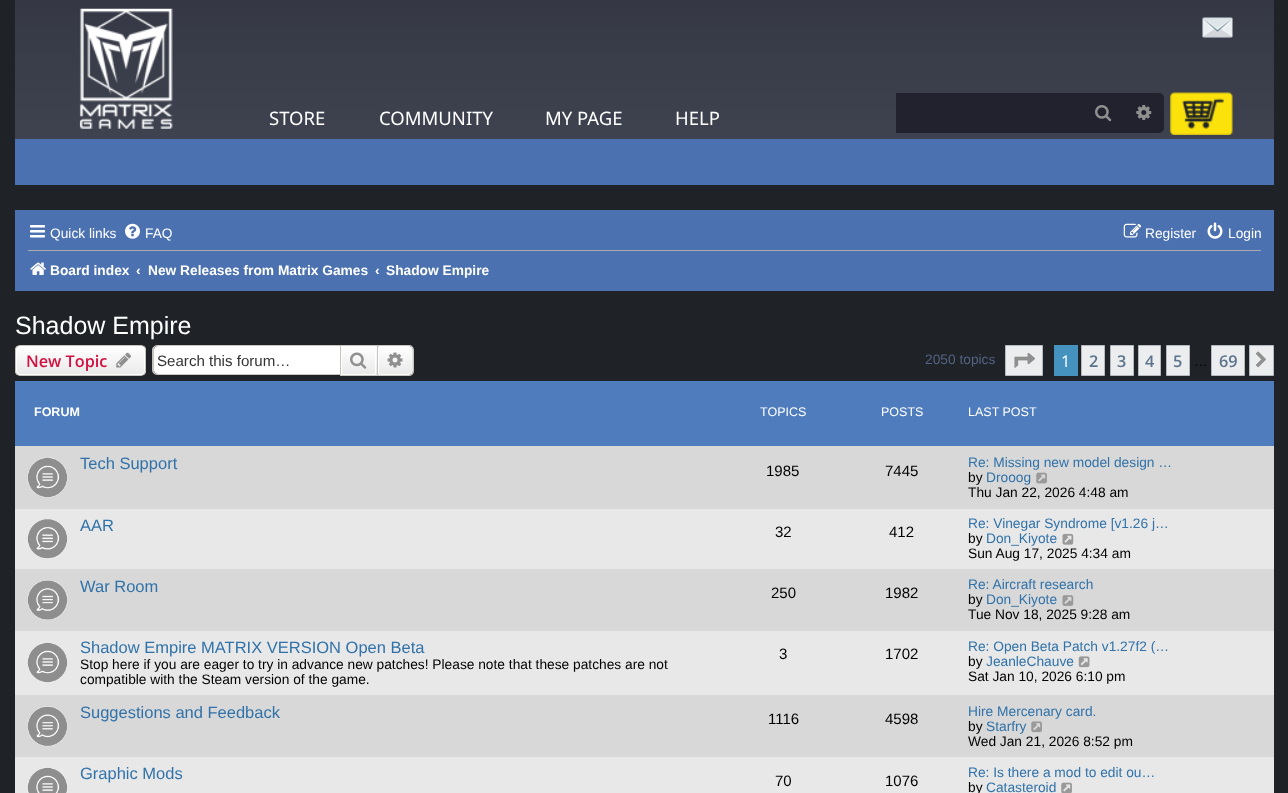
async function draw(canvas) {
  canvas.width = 1288
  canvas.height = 793
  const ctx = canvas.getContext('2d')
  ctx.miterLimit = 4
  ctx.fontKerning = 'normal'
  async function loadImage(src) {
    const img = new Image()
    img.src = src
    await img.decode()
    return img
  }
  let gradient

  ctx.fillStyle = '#1f2227'
  ctx.fillRect(0, 0, 1288, 793)
  gradient = ctx.createLinearGradient(644, 0, 644, 185)
  gradient.addColorStop(0, '#353844')
  gradient.addColorStop(1, '#424654')
  ctx.fillStyle = gradient
  ctx.fillRect(15, 0, 1259, 139)
  ctx.drawImage(await loadImage('image0.png'), 79, 8, 94, 121)
  ctx.drawImage(await loadImage('image1.png'), 1202, 17, 31, 21)
  ctx.font = '18.5px Noto Sans'
  ctx.fillStyle = '#fff'
  ctx.fillText('STORE', 269, 125)
  ctx.fillText('COMMUNITY', 379, 125)
  ctx.fillText('MY PAGE', 545, 125)
  ctx.fillText('HELP', 675, 125)
  ctx.fillStyle = '#22222e'
  ctx.fillRect(896, 93, 228, 40)
  ctx.beginPath()
  ctx.roundRect(1124, 93, 40, 40, [0, 5, 5, 0])
  ctx.fill()
  ctx.drawImage(await loadImage('image2.png'), 1136, 105, 16, 15)
  ctx.drawImage(await loadImage('image3.png'), 1095, 105, 17, 17)
  ctx.drawImage(await loadImage('image4.png'), 1170, 92, 63, 43)
  ctx.fillStyle = '#4b71b0'
  ctx.fillRect(15, 139, 1259, 46)
  ctx.fillRect(15, 210, 1259, 81)
  ctx.drawImage(await loadImage('image5.png'), 30, 225, 15, 13)
  ctx.font = '13.75px Liberation Sans'
  ctx.fillStyle = '#fff'
  ctx.fillText('Quick links', 50, 238)
  ctx.drawImage(await loadImage('image6.png'), 125, 223, 15, 16)
  ctx.fillText('FAQ', 145, 238)
  ctx.drawImage(await loadImage('image7.png'), 1123, 223, 19, 15)
  ctx.fillText('Register', 1145, 238)
  ctx.drawImage(await loadImage('image8.png'), 1207, 222, 16, 17)
  ctx.fillText('Login', 1228, 238)
  ctx.fillStyle = '#aaa'
  ctx.fillRect(28, 250, 1233, 1)
  ctx.drawImage(await loadImage('image9.png'), 30, 262, 16, 13)
  ctx.font = 'bold 13.75px Liberation Sans'
  ctx.fillStyle = '#fff'
  ctx.fillText('Board index', 50, 275)
  ctx.fillText('‹', 136, 275)
  ctx.fillText('New Releases from Matrix Games', 148, 275)
  ctx.fillText('‹', 375, 275)
  ctx.fillText('Shadow Empire', 386, 275)
  ctx.font = '25px Liberation Sans'
  ctx.fillText('Shadow Empire', 15, 334)
  ctx.save()
  ctx.beginPath()
  ctx.roundRect(15, 345, 131, 31, 5)
  ctx.clip()
  gradient = ctx.createLinearGradient(81, 346, 81, 375)
  gradient.addColorStop(0, '#fff')
  gradient.addColorStop(1, '#e9e9e9')
  ctx.fillStyle = gradient
  ctx.fillRect(15, 346, 131, 29)
  ctx.restore()
  ctx.beginPath()
  ctx.roundRect(16.5, 346.5, 128, 28, 3.5)
  ctx.strokeStyle = '#fff'
  ctx.stroke()
  ctx.beginPath()
  ctx.roundRect(15.5, 345.5, 130, 30, 4.5)
  ctx.strokeStyle = '#c7c3bf'
  ctx.stroke()
  ctx.font = '600 16.25px Open Sans'
  ctx.fillStyle = '#d31141'
  ctx.fillText('New Topic', 26, 367)
  ctx.drawImage(await loadImage('image10.png'), 116, 352, 15, 16)
  ctx.fillStyle = '#fff'
  ctx.beginPath()
  ctx.roundRect(154, 346, 186, 28, [4, 0, 0, 4])
  ctx.fill()
  ctx.fillStyle = '#c7c3bf'
  ctx.beginPath()
  ctx.moveTo(158, 345)
  ctx.lineTo(340, 345)
  ctx.lineTo(340, 375)
  ctx.lineTo(158, 375)
  ctx.bezierCurveTo(155, 375, 152, 373, 152, 370)
  ctx.lineTo(152, 350)
  ctx.bezierCurveTo(152, 347, 155, 345, 158, 345)
  ctx.closePath()
  ctx.moveTo(158, 346)
  ctx.lineTo(340, 346)
  ctx.lineTo(340, 374)
  ctx.lineTo(158, 374)
  ctx.bezierCurveTo(155, 374, 154, 372, 154, 370)
  ctx.lineTo(154, 350)
  ctx.bezierCurveTo(154, 348, 155, 346, 158, 346)
  ctx.closePath()
  ctx.fill('evenodd')
  ctx.font = '15.1px Liberation Sans'
  ctx.fillStyle = '#333'
  ctx.fillText('Search this forum…', 157, 366)
  gradient = ctx.createLinearGradient(359, 346, 359, 375)
  gradient.addColorStop(0, '#fff')
  gradient.addColorStop(1, '#e9e9e9')
  ctx.fillStyle = gradient
  ctx.fillRect(342, 346, 35, 29)
  ctx.strokeStyle = '#fff'
  ctx.strokeRect(341.5, 346.5, 34, 28)
  ctx.strokeStyle = '#c7c3bf'
  ctx.strokeRect(340.5, 345.5, 37, 30)
  ctx.drawImage(await loadImage('image11.png'), 350, 352, 17, 17)
  gradient = ctx.createLinearGradient(395, 346, 395, 375)
  gradient.addColorStop(0, '#fff')
  gradient.addColorStop(1, '#e9e9e9')
  ctx.fillStyle = gradient
  ctx.beginPath()
  ctx.roundRect(378.5, 346.5, 34, 28, [0, 3.5, 3.5, 0])
  ctx.fill()
  ctx.strokeStyle = '#fff'
  ctx.stroke()
  ctx.fillStyle = '#c7c3bf'
  ctx.beginPath()
  ctx.moveTo(377.5, 345)
  ctx.lineTo(409, 345)
  ctx.bezierCurveTo(411.5, 345, 414, 347, 414, 350)
  ctx.lineTo(414, 371)
  ctx.bezierCurveTo(414, 374, 411.5, 376, 409, 376)
  ctx.lineTo(377.5, 376)
  ctx.closePath()
  ctx.moveTo(377.5, 346)
  ctx.lineTo(409, 346)
  ctx.bezierCurveTo(411, 346, 412.5, 348, 412.5, 350)
  ctx.lineTo(412.5, 371)
  ctx.bezierCurveTo(412.5, 373.5, 411, 375, 409, 375)
  ctx.lineTo(377.5, 375)
  ctx.closePath()
  ctx.fill('evenodd')
  ctx.drawImage(await loadImage('image12.png'), 387, 352, 16, 16)
  ctx.font = '13.75px Liberation Sans'
  ctx.fillStyle = '#536482'
  ctx.fillText('2050 topics', 925, 364)
  ctx.fillStyle = '#ecedee'
  ctx.beginPath()
  ctx.rect(1005.5, 345.5, 37, 30)
  ctx.fill()
  ctx.strokeStyle = '#b4bac0'
  ctx.stroke()
  ctx.drawImage(await loadImage('image13.png'), 1014, 353, 21, 15)
  ctx.fillStyle = '#4692bf'
  ctx.fillRect(1054, 345, 24, 31)
  ctx.font = '16.25px Open Sans'
  ctx.fillStyle = '#fff'
  ctx.fillText('1', 1061, 367)
  ctx.fillStyle = '#ecedee'
  ctx.beginPath()
  ctx.rect(1081.5, 345.5, 23, 30)
  ctx.fill()
  ctx.stroke()
  ctx.font = '600 16.25px Open Sans'
  ctx.fillStyle = '#5c758c'
  ctx.fillText('2', 1089, 367)
  ctx.fillStyle = '#ecedee'
  ctx.beginPath()
  ctx.rect(1110.5, 345.5, 23, 30)
  ctx.fill()
  ctx.stroke()
  ctx.fillStyle = '#5c758c'
  ctx.fillText('3', 1117, 367)
  ctx.fillStyle = '#ecedee'
  ctx.beginPath()
  ctx.rect(1138.5, 345.5, 22, 30)
  ctx.fill()
  ctx.stroke()
  ctx.fillStyle = '#5c758c'
  ctx.fillText('4', 1145, 367)
  ctx.fillStyle = '#ecedee'
  ctx.beginPath()
  ctx.rect(1166.5, 345.5, 23, 30)
  ctx.fill()
  ctx.stroke()
  ctx.fillStyle = '#5c758c'
  ctx.fillText('5', 1173, 367)
  ctx.font = '13.75px Liberation Sans'
  ctx.fillStyle = '#000'
  ctx.fillText('…', 1194, 366)
  ctx.fillStyle = '#ecedee'
  ctx.beginPath()
  ctx.rect(1211.5, 345.5, 33, 30)
  ctx.fill()
  ctx.stroke()
  ctx.font = '600 16.25px Open Sans'
  ctx.fillStyle = '#5c758c'
  ctx.fillText('69', 1219, 367)
  ctx.fillStyle = '#ecedee'
  ctx.beginPath()
  ctx.rect(1249.5, 345.5, 24, 30)
  ctx.fill()
  ctx.stroke()
  ctx.drawImage(await loadImage('image14.png'), 1256, 351, 10, 17)
  ctx.fillStyle = '#4e7cbc'
  ctx.fillRect(15, 381, 1259, 65)
  ctx.font = 'bold 12.5px Liberation Sans'
  ctx.fillStyle = '#fff'
  ctx.fillText('FORUM', 34, 416)
  ctx.font = '12.5px Liberation Sans'
  ctx.fillText('TOPICS', 760, 416)
  ctx.fillText('POSTS', 881, 416)
  ctx.fillText('LAST POST', 968, 416)
  ctx.fillStyle = '#d8d8d8'
  ctx.fillRect(15, 446, 1259, 63)
  ctx.drawImage(await loadImage('image15.png'), 27, 457, 41, 41)
  ctx.font = '16.5px Liberation Sans'
  ctx.fillStyle = '#3072a9'
  ctx.fillText('Tech Support', 80, 469)
  ctx.font = '15px Liberation Sans'
  ctx.fillStyle = '#000'
  ctx.fillText('1985', 766, 476)
  ctx.fillText('7445', 885, 476)
  ctx.font = '13.75px Liberation Sans'
  ctx.fillStyle = '#3072a9'
  ctx.fillText('Re: Missing new model design …', 968, 467)
  ctx.fillStyle = '#000'
  ctx.fillText('by', 968, 482)
  ctx.fillStyle = '#3072a9'
  ctx.fillText('Drooog', 986, 482)
  ctx.drawImage(await loadImage('image16.png'), 1036, 472, 11, 12)
  ctx.fillStyle = '#000'
  ctx.fillText('Thu Jan 22, 2026 4:48 am', 968, 497)
  ctx.fillStyle = '#e8e8e8'
  ctx.fillRect(15, 509, 1259, 60)
  ctx.drawImage(await loadImage('image17.png'), 27, 519, 41, 40)
  ctx.font = '16.5px Liberation Sans'
  ctx.fillStyle = '#3072a9'
  ctx.fillText('AAR', 80, 531)
  ctx.font = '15px Liberation Sans'
  ctx.fillStyle = '#000'
  ctx.fillText('32', 775, 537)
  ctx.fillText('412', 889, 537)
  ctx.font = '13.75px Liberation Sans'
  ctx.fillStyle = '#3072a9'
  ctx.fillText('Re: Vinegar Syndrome [v1.26 j…', 968, 528)
  ctx.fillStyle = '#000'
  ctx.fillText('by', 968, 543)
  ctx.fillStyle = '#3072a9'
  ctx.fillText('Don_Kiyote', 986, 543)
  ctx.drawImage(await loadImage('image18.png'), 1062, 533, 12, 12)
  ctx.fillStyle = '#000'
  ctx.fillText('Sun Aug 17, 2025 4:34 am', 968, 558)
  ctx.fillStyle = '#d8d8d8'
  ctx.fillRect(15, 569, 1259, 62)
  ctx.drawImage(await loadImage('image19.png'), 27, 580, 41, 40)
  ctx.font = '16.5px Liberation Sans'
  ctx.fillStyle = '#3072a9'
  ctx.fillText('War Room', 80, 592)
  ctx.font = '15px Liberation Sans'
  ctx.fillStyle = '#000'
  ctx.fillText('250', 771, 598)
  ctx.fillText('1982', 885, 598)
  ctx.font = '13.75px Liberation Sans'
  ctx.fillStyle = '#3072a9'
  ctx.fillText('Re: Aircraft research', 968, 589)
  ctx.fillStyle = '#000'
  ctx.fillText('by', 968, 604)
  ctx.fillStyle = '#3072a9'
  ctx.fillText('Don_Kiyote', 986, 604)
  ctx.drawImage(await loadImage('image20.png'), 1062, 595, 12, 11)
  ctx.fillStyle = '#000'
  ctx.fillText('Tue Nov 18, 2025 9:28 am', 968, 619)
  ctx.fillStyle = '#e8e8e8'
  ctx.fillRect(15, 631, 1259, 64)
  ctx.drawImage(await loadImage('image21.png'), 27, 642, 41, 41)
  ctx.font = '16.5px Liberation Sans'
  ctx.fillStyle = '#3072a9'
  ctx.fillText('Shadow Empire MATRIX VERSION Open Beta', 80, 653)
  ctx.font = '13.75px Liberation Sans'
  ctx.fillStyle = '#000'
  ctx.fillText('Stop here if you are eager to try in advance new patches! Please note that these patches are not', 80, 669)
  ctx.fillText('compatible with the Steam version of the game.', 80, 684)
  ctx.font = '15px Liberation Sans'
  ctx.fillText('3', 779, 659)
  ctx.fillText('1702', 885, 659)
  ctx.font = '13.75px Liberation Sans'
  ctx.fillStyle = '#3072a9'
  ctx.fillText('Re: Open Beta Patch v1.27f2 (…', 968, 651)
  ctx.fillStyle = '#000'
  ctx.fillText('by', 968, 666)
  ctx.fillStyle = '#3072a9'
  ctx.fillText('JeanleChauve', 986, 666)
  ctx.drawImage(await loadImage('image22.png'), 1078, 656, 12, 12)
  ctx.fillStyle = '#000'
  ctx.fillText('Sat Jan 10, 2026 6:10 pm', 968, 681)
  ctx.fillStyle = '#d8d8d8'
  ctx.fillRect(15, 695, 1259, 62)
  ctx.drawImage(await loadImage('image23.png'), 27, 706, 41, 41)
  ctx.font = '16.5px Liberation Sans'
  ctx.fillStyle = '#3072a9'
  ctx.fillText('Suggestions and Feedback', 80, 718)
  ctx.font = '15px Liberation Sans'
  ctx.fillStyle = '#000'
  ctx.fillText('1116', 768, 724)
  ctx.fillText('4598', 885, 724)
  ctx.font = '13.75px Liberation Sans'
  ctx.fillStyle = '#3072a9'
  ctx.fillText('Hire Mercenary card.', 968, 716)
  ctx.fillStyle = '#000'
  ctx.fillText('by', 968, 731)
  ctx.fillStyle = '#3072a9'
  ctx.fillText('Starfry', 986, 731)
  ctx.drawImage(await loadImage('image24.png'), 1031, 721, 11, 12)
  ctx.fillStyle = '#000'
  ctx.fillText('Wed Jan 21, 2026 8:52 pm', 968, 746)
  ctx.fillStyle = '#e8e8e8'
  ctx.fillRect(15, 757, 1259, 36)
  ctx.drawImage(await loadImage('image25.png'), 27, 767, 41, 26)
  ctx.font = '16.5px Liberation Sans'
  ctx.fillStyle = '#3072a9'
  ctx.fillText('Graphic Mods', 80, 779)
  ctx.font = '15px Liberation Sans'
  ctx.fillStyle = '#000'
  ctx.fillText('70', 775, 786)
  ctx.fillText('1076', 885, 786)
  ctx.font = '13.75px Liberation Sans'
  ctx.fillStyle = '#3072a9'
  ctx.fillText('Re: Is there a mod to edit ou…', 968, 777)
  ctx.fillStyle = '#000'
  ctx.fillText('by', 968, 792)
  ctx.fillStyle = '#3072a9'
  ctx.fillText('Catasteroid', 986, 792)
  ctx.drawImage(await loadImage('image26.png'), 1061, 782, 11, 11)
}

draw(document.querySelector('canvas'))
